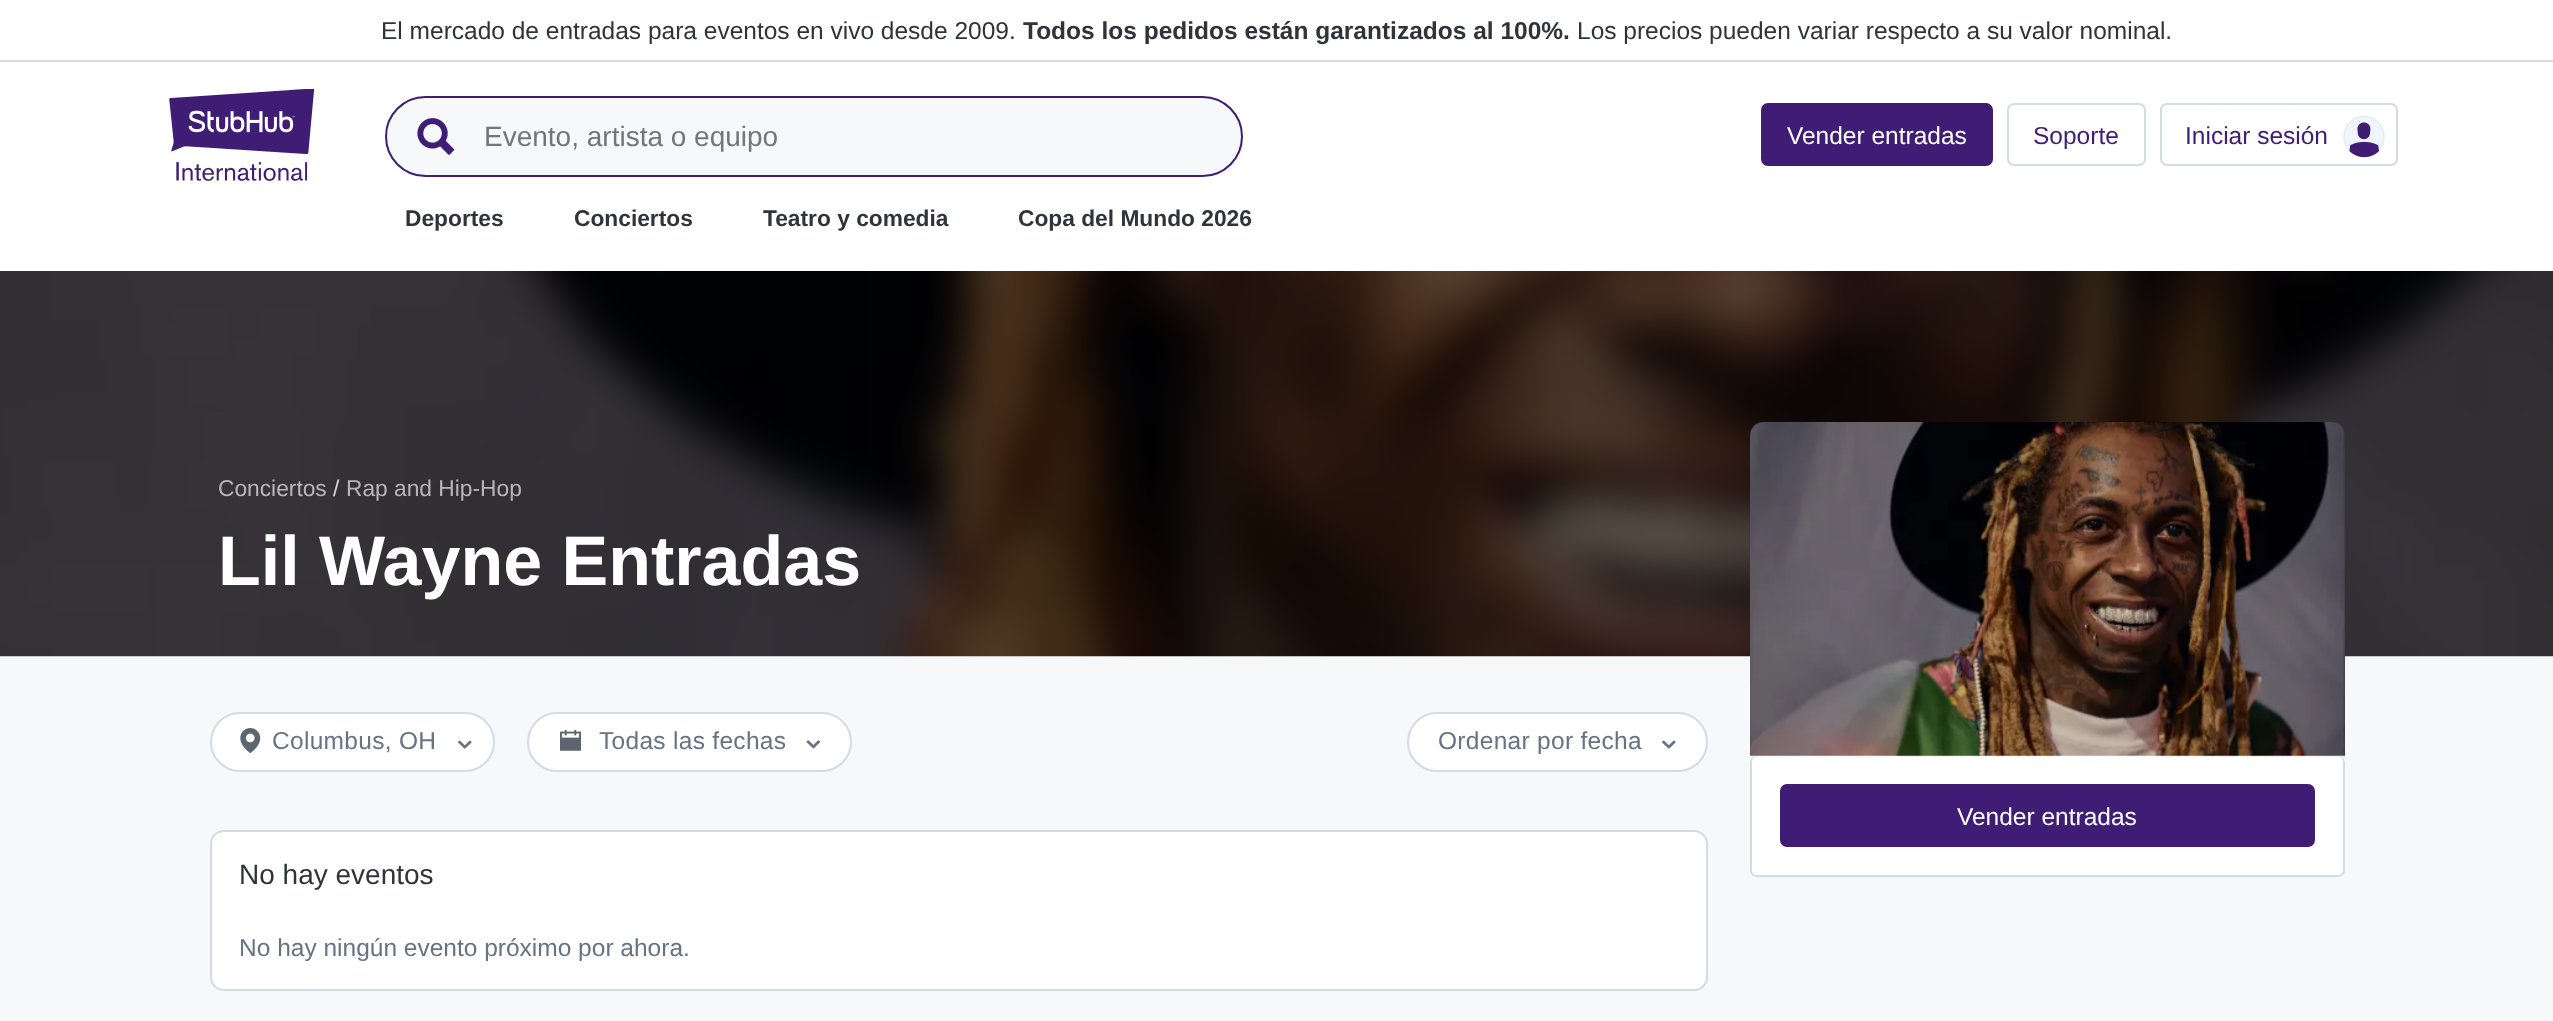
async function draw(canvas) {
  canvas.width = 2553
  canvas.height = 1021
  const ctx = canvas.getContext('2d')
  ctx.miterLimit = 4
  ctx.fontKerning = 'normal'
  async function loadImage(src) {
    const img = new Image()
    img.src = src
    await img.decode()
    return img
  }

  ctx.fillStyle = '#f6f8f9'
  ctx.fillRect(0, 0, 2553, 1021)
  ctx.fillStyle = '#fff'
  ctx.fillRect(0, 0, 2553, 271)
  ctx.fillStyle = '#d1dce5'
  ctx.fillRect(0, 60, 2553, 2)
  ctx.font = '24.5px Liberation Sans'
  ctx.fillStyle = '#2f343b'
  ctx.fillText('El mercado de entradas para eventos en vivo desde 2009.', 381, 39)
  ctx.font = 'bold 24.5px Liberation Sans'
  ctx.fillText('Todos los pedidos están garantizados al 100%.', 1023, 39)
  ctx.font = '24.5px Liberation Sans'
  ctx.fillText('Los precios pueden variar respecto a su valor nominal.', 1577, 39)
  ctx.fillStyle = '#f6f8f9'
  ctx.beginPath()
  ctx.roundRect(386, 97, 856, 79, 39.5)
  ctx.fill()
  ctx.strokeStyle = '#3f1d75'
  ctx.lineWidth = 2
  ctx.stroke()
  ctx.drawImage(await loadImage('image0.png'), 417, 118, 38, 37)
  ctx.font = '28px Liberation Sans'
  ctx.fillStyle = '#757575'
  ctx.fillText('Evento, artista o equipo', 484, 146)
  ctx.drawImage(await loadImage('image1.png'), 169, 89, 146, 92)
  ctx.fillStyle = '#3f1d75'
  ctx.beginPath()
  ctx.roundRect(1762, 104, 230, 61, 6)
  ctx.fill()
  ctx.stroke()
  ctx.font = '24.5px Liberation Sans'
  ctx.fillStyle = '#fff'
  ctx.fillText('Vender entradas', 1787, 144)
  ctx.beginPath()
  ctx.roundRect(2008, 104, 137, 61, 6)
  ctx.strokeStyle = '#d1dce5'
  ctx.stroke()
  ctx.fillStyle = '#3f1d75'
  ctx.fillText('Soporte', 2033, 144)
  ctx.beginPath()
  ctx.roundRect(2161, 104, 236, 61, 6)
  ctx.stroke()
  ctx.fillText('Iniciar sesión', 2185, 144)
  ctx.drawImage(await loadImage('image2.png'), 2343, 116, 42, 42)
  ctx.font = 'bold 22.75px Liberation Sans'
  ctx.fillStyle = '#2f343b'
  ctx.fillText('Deportes', 405, 226)
  ctx.fillText('Conciertos', 574, 226)
  ctx.fillText('Teatro y comedia', 763, 226)
  ctx.fillText('Copa del Mundo 2026', 1018, 226)
  ctx.drawImage(await loadImage('image3.png'), 0, 271, 2553, 386)
  ctx.font = '22.75px Liberation Sans'
  ctx.fillStyle = '#b7b5b7'
  ctx.fillText('Conciertos', 218, 496)
  ctx.fillStyle = '#d6d6d7'
  ctx.fillText('/', 333, 496)
  ctx.fillStyle = '#b7b5b7'
  ctx.fillText('Rap and Hip-Hop', 346, 496)
  ctx.font = 'bold 70px Liberation Sans'
  ctx.fillStyle = '#fff'
  ctx.fillText('Lil Wayne Entradas', 218, 585)
  ctx.beginPath()
  ctx.roundRect(211, 713, 283, 58, 29)
  ctx.fill()
  ctx.stroke()
  ctx.drawImage(await loadImage('image4.png'), 240, 728, 21, 26)
  ctx.letterSpacing = '0.3px'
  ctx.font = '24.5px Liberation Sans'
  ctx.fillStyle = '#677383'
  ctx.fillText('Columbus, OH', 272, 749)
  ctx.drawImage(await loadImage('image5.png'), 458, 740, 14, 9)
  ctx.fillStyle = '#fff'
  ctx.beginPath()
  ctx.roundRect(528, 713, 323, 58, 29)
  ctx.fill()
  ctx.stroke()
  ctx.drawImage(await loadImage('image6.png'), 560, 730, 21, 21)
  ctx.fillStyle = '#677383'
  ctx.fillText('Todas las fechas', 599, 749)
  ctx.drawImage(await loadImage('image7.png'), 806, 740, 15, 9)
  ctx.fillStyle = '#fff'
  ctx.beginPath()
  ctx.roundRect(1408, 713, 299, 58, 29)
  ctx.fill()
  ctx.stroke()
  ctx.fillStyle = '#677383'
  ctx.fillText('Ordenar por fecha', 1438, 749)
  ctx.drawImage(await loadImage('image8.png'), 1662, 740, 14, 9)
  ctx.fillStyle = '#fff'
  ctx.beginPath()
  ctx.roundRect(211, 831, 1496, 159, 13)
  ctx.fill()
  ctx.stroke()
  ctx.letterSpacing = '0px'
  ctx.font = '28px Liberation Sans'
  ctx.fillStyle = '#2f343b'
  ctx.fillText('No hay eventos', 239, 884)
  ctx.font = '24.5px Liberation Sans'
  ctx.fillStyle = '#677383'
  ctx.fillText('No hay ningún evento próximo por ahora.', 239, 956)
  ctx.fillStyle = '#fff'
  ctx.beginPath()
  ctx.roundRect(1750, 756, 595, 121, 7)
  ctx.fill()
  ctx.fillStyle = '#d1dce5'
  ctx.beginPath()
  ctx.moveTo(1757, 756)
  ctx.lineTo(2338, 756)
  ctx.bezierCurveTo(2342, 756, 2345, 759, 2345, 763)
  ctx.lineTo(2345, 870)
  ctx.bezierCurveTo(2345, 874, 2342, 877, 2338, 877)
  ctx.lineTo(1757, 877)
  ctx.bezierCurveTo(1753, 877, 1750, 874, 1750, 870)
  ctx.lineTo(1750, 763)
  ctx.bezierCurveTo(1750, 759, 1753, 756, 1757, 756)
  ctx.closePath()
  ctx.moveTo(1757, 756)
  ctx.lineTo(2338, 756)
  ctx.bezierCurveTo(2341, 756, 2343, 759, 2343, 763)
  ctx.lineTo(2343, 870)
  ctx.bezierCurveTo(2343, 873, 2341, 875, 2338, 875)
  ctx.lineTo(1757, 875)
  ctx.bezierCurveTo(1754, 875, 1752, 873, 1752, 870)
  ctx.lineTo(1752, 763)
  ctx.bezierCurveTo(1752, 759, 1754, 756, 1757, 756)
  ctx.closePath()
  ctx.fill('evenodd')
  ctx.drawImage(await loadImage('image9.png'), 1750, 422, 595, 335)
  ctx.fillStyle = '#3f1d75'
  ctx.beginPath()
  ctx.roundRect(1781, 785, 533, 61, 6)
  ctx.fill()
  ctx.strokeStyle = '#3f1d75'
  ctx.stroke()
  ctx.fillStyle = '#fff'
  ctx.fillText('Vender entradas', 1957, 825)
}

draw(document.querySelector('canvas'))
